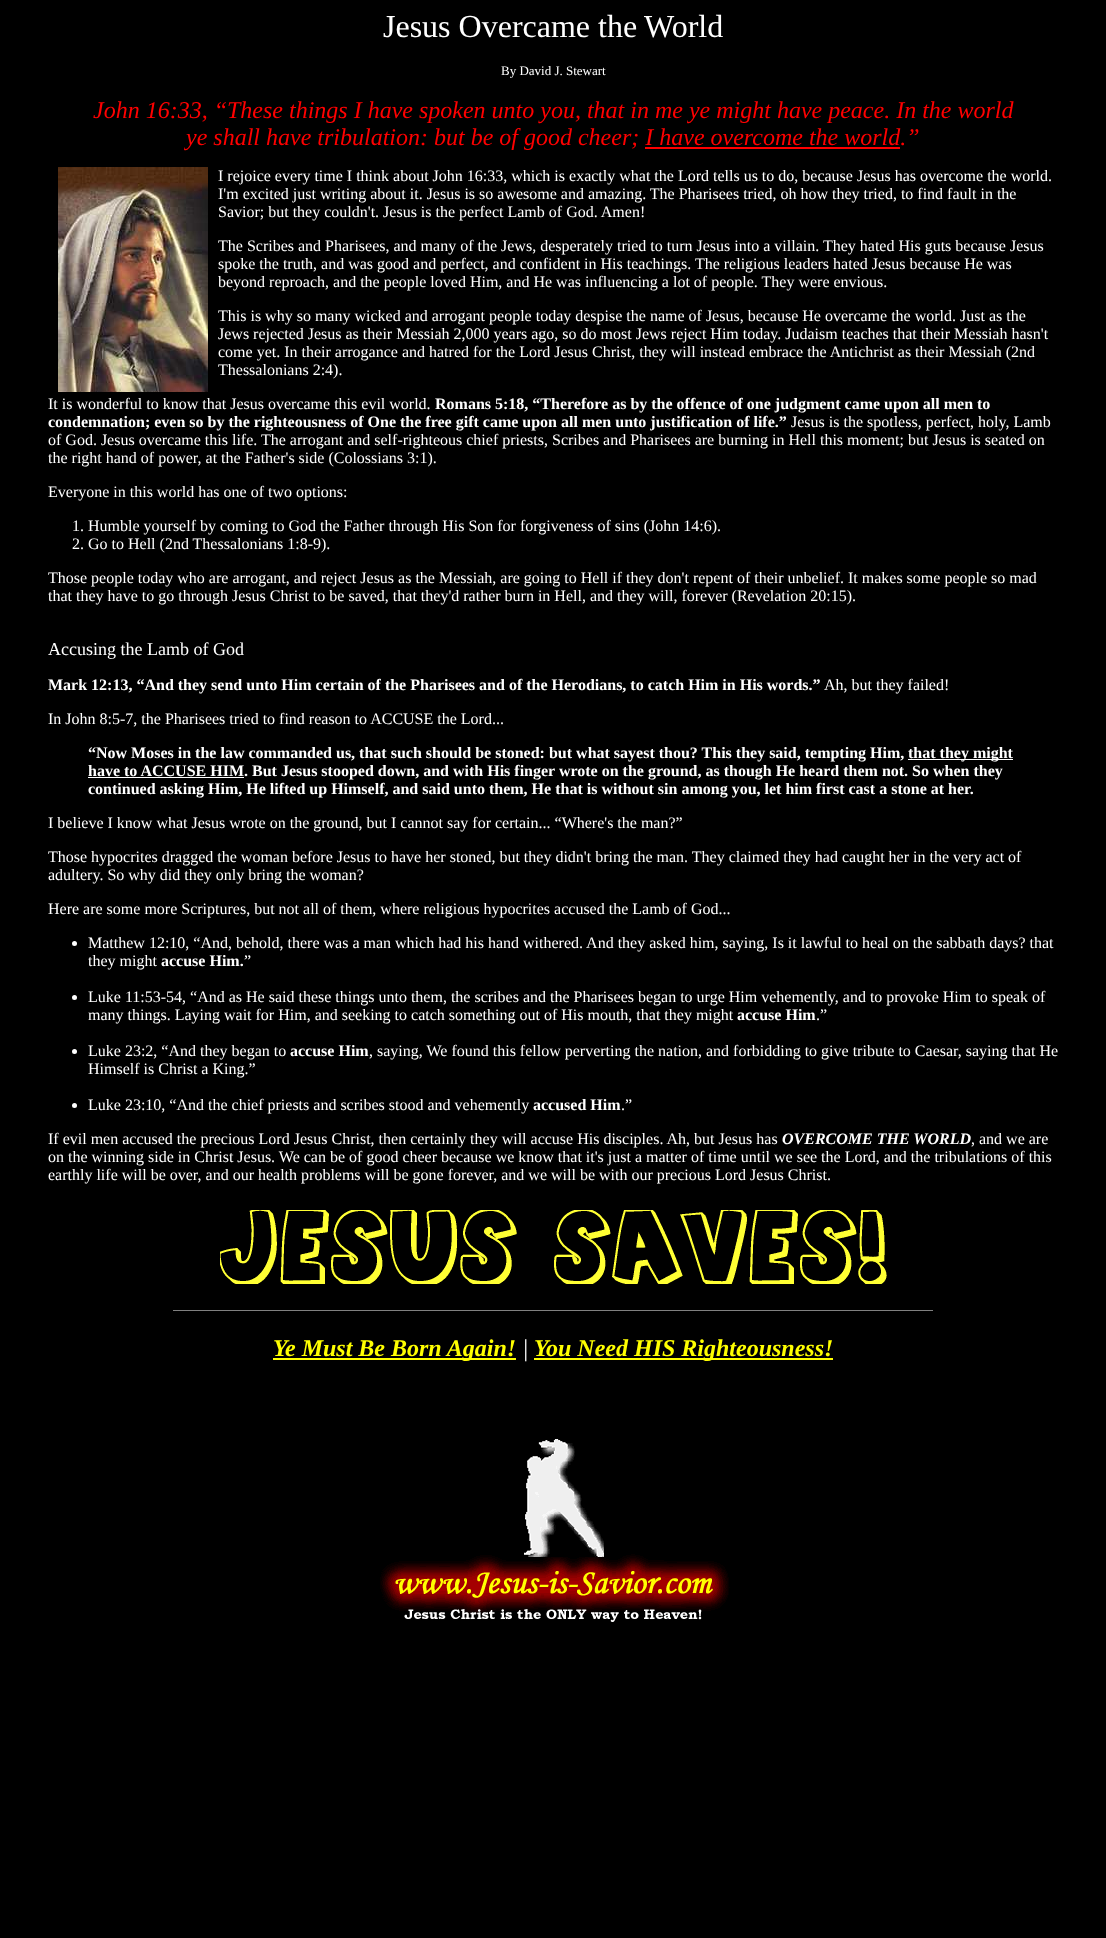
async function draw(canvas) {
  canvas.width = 1106
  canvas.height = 1938
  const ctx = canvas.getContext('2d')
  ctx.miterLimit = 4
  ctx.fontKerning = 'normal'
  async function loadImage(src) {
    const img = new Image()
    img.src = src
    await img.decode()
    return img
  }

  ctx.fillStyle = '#000'
  ctx.fillRect(0, 0, 1106, 1938)
  ctx.font = '32px Liberation Serif'
  ctx.fillStyle = '#fff'
  ctx.fillText('Jesus Overcame the', 383, 37)
  ctx.fillText('World', 644, 37)
  ctx.font = '13px Liberation Serif'
  ctx.fillText('By David J. Stewart', 501, 75)
  ctx.font = 'italic 24px Liberation Serif'
  ctx.fillStyle = '#f00'
  ctx.fillText('John 16:33, “These things I have spoken unto you, that in me ye might have peace. In the world', 93, 118)
  ctx.fillText('ye shall have tribulation: but be of good cheer; I have overcome the world.”', 186, 145)
  ctx.fillRect(645, 147, 255, 2)
  ctx.drawImage(await loadImage('image0.png'), 58, 167, 150, 225)
  ctx.font = '16px Liberation Serif'
  ctx.fillStyle = '#fff'
  ctx.fillText('I rejoice every time I think about John 16:33, which is exactly what the Lord tells us to do, because Jesus has overcome the world.', 218, 181)
  ctx.fillText('I\'m excited just writing about it. Jesus is so awesome and amazing. The Pharisees tried, oh how they tried, to find fault in the', 218, 199)
  ctx.fillText('Savior; but they couldn\'t. Jesus is the perfect Lamb of God. Amen!', 218, 217)
  ctx.fillText('The Scribes and Pharisees, and many of the Jews, desperately tried to turn Jesus into a villain. They hated His guts because Jesus', 218, 251)
  ctx.fillText('spoke the truth, and was good and perfect, and confident in His teachings. The religious leaders hated Jesus because He was', 218, 269)
  ctx.fillText('beyond reproach, and the people loved Him, and He was influencing a lot of people. They were envious.', 218, 287)
  ctx.fillText('This is why so many wicked and arrogant people today despise the name of Jesus, because He overcame the world. Just as the', 218, 321)
  ctx.fillText('Jews rejected Jesus as their Messiah 2,000 years ago, so do most Jews reject Him today. Judaism teaches that their Messiah hasn\'t', 218, 339)
  ctx.fillText('come yet. In their arrogance and hatred for the Lord Jesus Christ, they will instead embrace the Antichrist as their Messiah (2nd', 218, 357)
  ctx.fillText('Thessalonians 2:4).', 218, 375)
  ctx.fillText('It is wonderful to know that Jesus overcame this evil world.', 48, 409)
  ctx.font = 'bold 16px Liberation Serif'
  ctx.fillText('Romans 5:18, “Therefore as by the offence of one judgment came upon all men to', 435, 409)
  ctx.fillText('condemnation; even so by the righteousness of One the free gift came upon all men unto justification of life.”', 48, 427)
  ctx.font = '16px Liberation Serif'
  ctx.fillText('Jesus is the spotless, perfect, holy, Lamb', 791, 427)
  ctx.fillText('of God. Jesus overcame this life. The arrogant and self-righteous chief priests, Scribes and Pharisees are burning in Hell this moment; but Jesus is seated on', 48, 445)
  ctx.fillText('the right hand of power, at the Father\'s side (Colossians 3:1).', 48, 463)
  ctx.fillText('Everyone in this world has one of two options:', 48, 497)
  ctx.fillText('1. Humble yourself by coming to God the Father through His Son for forgiveness of sins (John 14:6).', 72, 531)
  ctx.fillText('2. Go to Hell (2nd Thessalonians 1:8-9).', 72, 549)
  ctx.fillText('Those people today who are arrogant, and reject Jesus as the Messiah, are going to Hell if they don\'t repent of their unbelief. It makes some people so mad', 48, 583)
  ctx.fillText('that they have to go through Jesus Christ to be saved, that they\'d rather burn in Hell, and they will, forever (Revelation 20:15).', 48, 601)
  ctx.font = '18px Liberation Serif'
  ctx.fillText('Accusing the Lamb of God', 48, 655)
  ctx.font = 'bold 16px Liberation Serif'
  ctx.fillText('Mark 12:13, “And they send unto Him certain of the Pharisees and of the Herodians, to catch Him in His words.”', 48, 690)
  ctx.font = '16px Liberation Serif'
  ctx.fillText('Ah, but they failed!', 824, 690)
  ctx.fillText('In John 8:5-7, the Pharisees tried to find reason to ACCUSE the Lord...', 48, 724)
  ctx.font = 'bold 16px Liberation Serif'
  ctx.fillText('“Now Moses in the law commanded us, that such should be stoned: but what sayest thou? This they said, tempting Him,', 88, 758)
  ctx.fillRect(908, 759, 105, 1)
  ctx.fillText('that they might', 908, 758)
  ctx.fillRect(88, 777, 156, 1)
  ctx.fillText('have to ACCUSE HIM. But Jesus stooped down, and with His finger wrote on the ground, as though He heard them not. So when they', 88, 776)
  ctx.fillText('continued asking Him, He lifted up Himself, and said unto them, He that is without sin among you, let him first cast a stone at her.', 88, 794)
  ctx.font = '16px Liberation Serif'
  ctx.fillText('I believe I know what Jesus wrote on the ground, but I cannot say for certain... “Where\'s the man?”', 48, 828)
  ctx.fillText('Those hypocrites dragged the woman before Jesus to have her stoned, but they didn\'t bring the man. They claimed they had caught her in the very act of', 48, 862)
  ctx.fillText('adultery. So why did they only bring the woman?', 48, 880)
  ctx.fillText('Here are some more Scriptures, but not all of them, where religious hypocrites accused the Lamb of God...', 48, 914)
  ctx.beginPath()
  ctx.arc(74.5, 943.5, 2.5, 0, 2 * Math.PI)
  ctx.fill()
  ctx.fillText('Matthew 12:10, “And, behold, there was a man which had his hand withered. And they asked him, saying, Is it lawful to heal on the sabbath days? that', 88, 948)
  ctx.fillText('they might', 88, 966)
  ctx.font = 'bold 16px Liberation Serif'
  ctx.fillText('accuse Him.', 161, 966)
  ctx.font = '16px Liberation Serif'
  ctx.fillText('”', 244, 966)
  ctx.beginPath()
  ctx.arc(74.5, 997.5, 2.5, 0, 2 * Math.PI)
  ctx.fill()
  ctx.fillText('Luke 11:53-54, “And as He said these things unto them, the scribes and the Pharisees began to urge Him vehemently, and to provoke Him to speak of', 88, 1002)
  ctx.fillText('many things. Laying wait for Him, and seeking to catch something out of His mouth, that they might', 88, 1020)
  ctx.font = 'bold 16px Liberation Serif'
  ctx.fillText('accuse Him', 737, 1020)
  ctx.font = '16px Liberation Serif'
  ctx.fillText('.”', 816, 1020)
  ctx.beginPath()
  ctx.arc(74.5, 1051.5, 2.5, 0, 2 * Math.PI)
  ctx.fill()
  ctx.fillText('Luke 23:2, “And they began to', 88, 1056)
  ctx.font = 'bold 16px Liberation Serif'
  ctx.fillText('accuse Him', 290, 1056)
  ctx.font = '16px Liberation Serif'
  ctx.fillText(', saying, We found this fellow perverting the nation, and forbidding to give tribute to Caesar, saying that He', 369, 1056)
  ctx.fillText('Himself is Christ a King.”', 88, 1074)
  ctx.beginPath()
  ctx.arc(74.5, 1105.5, 2.5, 0, 2 * Math.PI)
  ctx.fill()
  ctx.fillText('Luke 23:10, “And the chief priests and scribes stood and vehemently', 88, 1110)
  ctx.font = 'bold 16px Liberation Serif'
  ctx.fillText('accused Him', 533, 1110)
  ctx.font = '16px Liberation Serif'
  ctx.fillText('.”', 621, 1110)
  ctx.fillText('If evil men accused the precious Lord Jesus Christ, then certainly they will accuse His disciples. Ah, but Jesus has', 48, 1144)
  ctx.font = 'italic bold 16px Liberation Serif'
  ctx.fillText('OVERCOME THE WORLD', 782, 1144)
  ctx.font = '16px Liberation Serif'
  ctx.fillText(', and we are', 971, 1144)
  ctx.fillText('on the winning side in Christ Jesus. We can be of good cheer because we know that it\'s just a matter of time until we see the Lord, and the tribulations of this', 48, 1162)
  ctx.fillText('earthly life will be over, and our health problems will be gone forever, and we will be with our precious Lord Jesus Christ.', 48, 1180)
  ctx.drawImage(await loadImage('image1.png'), 220, 1210, 667, 74)
  ctx.fillStyle = '#808080'
  ctx.fillRect(173, 1310, 760, 1)
  ctx.fillStyle = '#ff0'
  ctx.fillRect(273, 1358, 243, 2)
  ctx.font = 'italic bold 24px Liberation Serif'
  ctx.fillText('Ye Must Be Born Again!', 273, 1356)
  ctx.font = 'italic 24px Liberation Serif'
  ctx.fillStyle = '#fff'
  ctx.fillText('|', 522, 1356)
  ctx.fillStyle = '#ff0'
  ctx.fillRect(534, 1358, 299, 2)
  ctx.font = 'italic bold 24px Liberation Serif'
  ctx.fillText('You Need HIS Righteousness!', 534, 1356)
  ctx.drawImage(await loadImage('image2.png'), 380, 1439, 350, 183)
}

draw(document.querySelector('canvas'))
